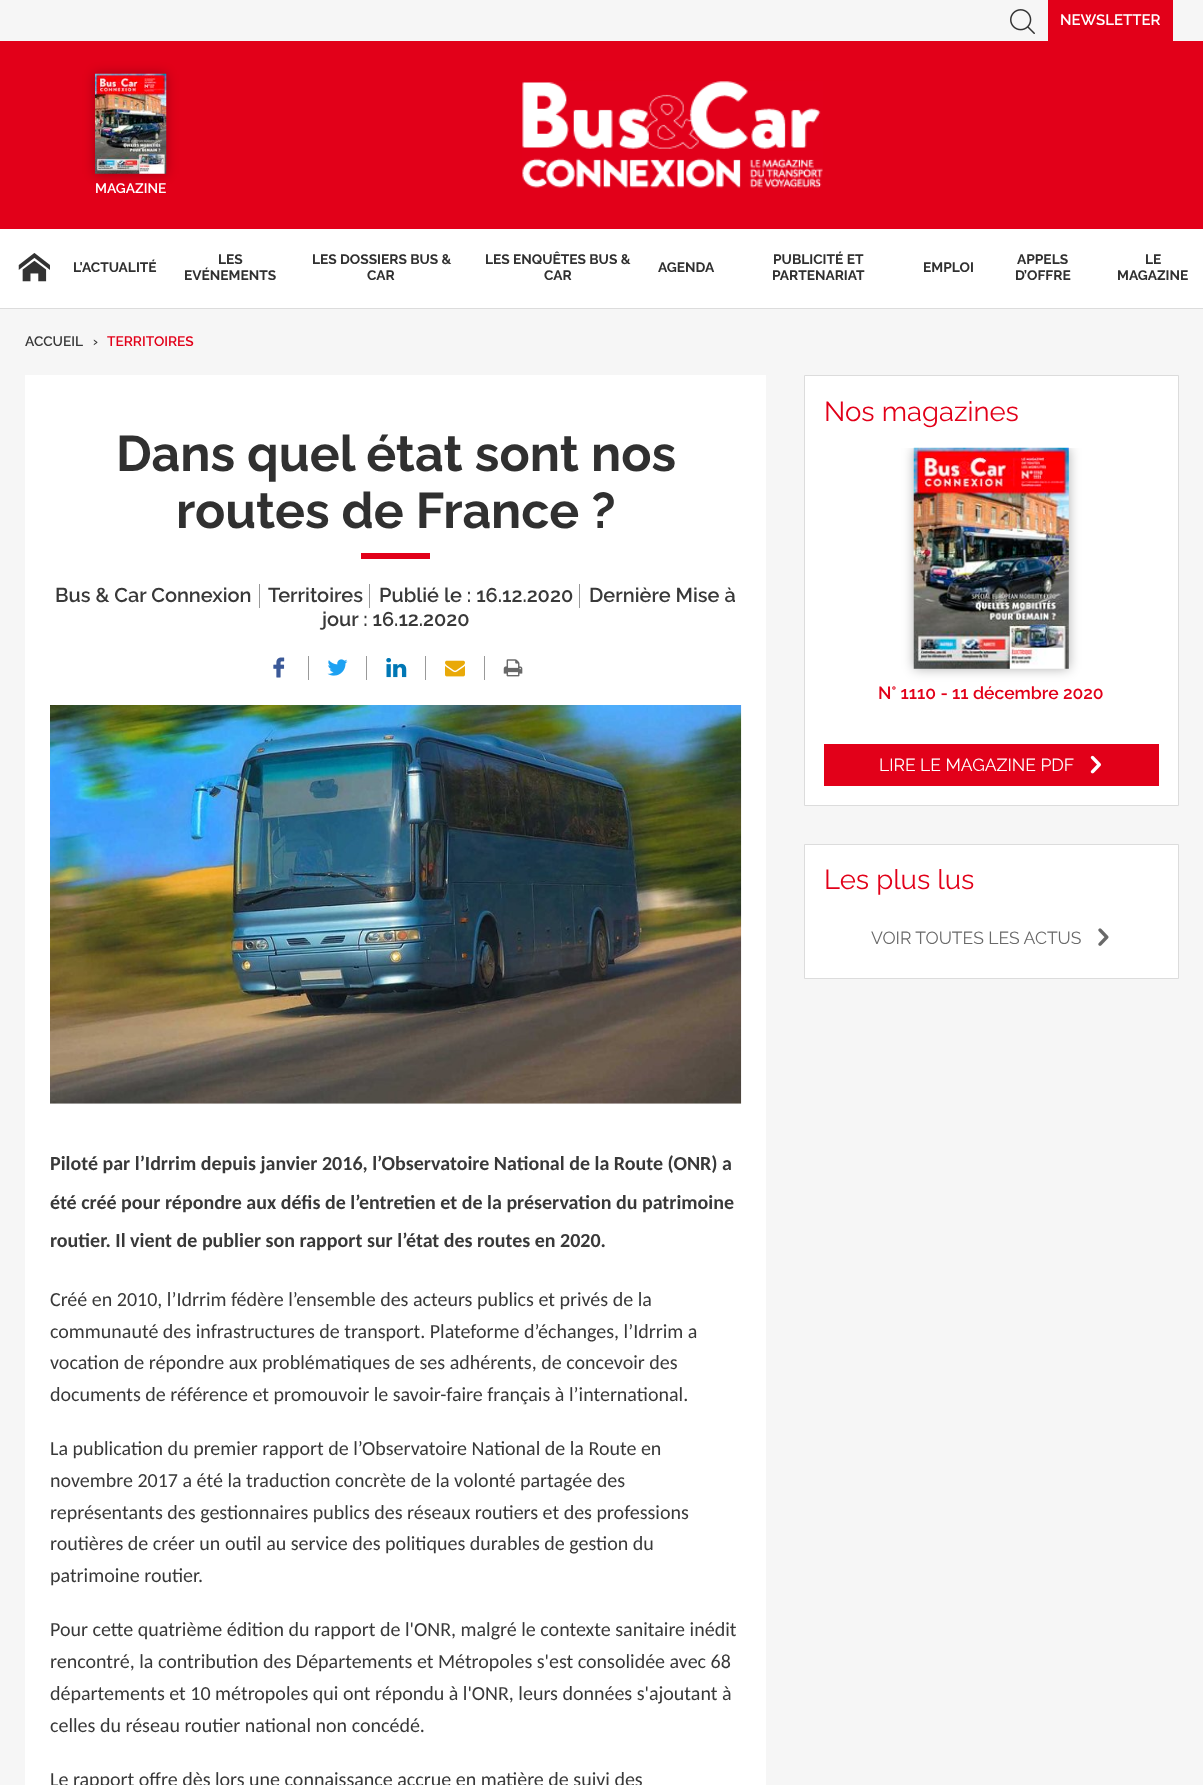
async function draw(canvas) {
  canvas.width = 1203
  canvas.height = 1785
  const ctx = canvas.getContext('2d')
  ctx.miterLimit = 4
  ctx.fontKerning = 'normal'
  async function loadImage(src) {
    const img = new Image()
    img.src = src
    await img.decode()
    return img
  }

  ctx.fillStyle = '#f6f6f6'
  ctx.fillRect(0, 0, 1203, 1785)
  ctx.fillStyle = '#e20019'
  ctx.fillRect(0, 41, 1203, 188)
  ctx.fillStyle = '#dcdcdc'
  ctx.fillRect(0, 308, 1203, 1)
  ctx.drawImage(await loadImage('image0.png'), 1010, 9, 25, 25)
  ctx.fillStyle = '#e20019'
  ctx.fillRect(1048, 0, 125, 41)
  ctx.font = '600 15px Raleway'
  ctx.fillStyle = '#fff'
  ctx.fillText('NEWSLETTER', 1060, 25)
  ctx.fillStyle = '#0000004d'
  ctx.filter = 'blur(6px)'
  ctx.beginPath()
  ctx.rect(95, 74, 71, 100)
  ctx.fill()
  ctx.filter = 'none'
  ctx.drawImage(await loadImage('image1.png'), 95, 73, 72, 101)
  ctx.font = '600 13.75px Raleway'
  ctx.fillStyle = '#fff'
  ctx.fillText('MAGAZINE', 95, 193)
  ctx.drawImage(await loadImage('image2.png'), 522, 81, 301, 107)
  ctx.fillRect(0, 229, 1203, 79)
  ctx.drawImage(await loadImage('image3.png'), 18, 253, 32, 29)
  ctx.font = 'bold 13.75px Raleway'
  ctx.fillStyle = '#303030'
  ctx.fillText('L\'ACTUALITÉ', 73, 272)
  ctx.fillText('LES', 218, 264)
  ctx.fillText('EVÉNEMENTS', 184, 280)
  ctx.fillText('LES DOSSIERS BUS &', 312, 264)
  ctx.fillText('CAR', 367, 280)
  ctx.fillText('LES ENQUÊTES BUS &', 485, 264)
  ctx.fillText('CAR', 544, 280)
  ctx.fillText('AGENDA', 658, 272)
  ctx.fillText('PUBLICITÉ ET', 773, 264)
  ctx.fillText('PARTENARIAT', 772, 280)
  ctx.fillText('EMPLOI', 923, 272)
  ctx.fillText('APPELS', 1017, 264)
  ctx.fillText('D’OFFRE', 1015, 280)
  ctx.fillText('LE', 1145, 264)
  ctx.fillText('MAGAZINE', 1117, 280)
  ctx.font = '600 13.75px Raleway'
  ctx.fillStyle = '#393939'
  ctx.fillText('ACCUEIL', 25, 346)
  ctx.fillText('›', 93, 346)
  ctx.fillStyle = '#e20019'
  ctx.fillText('TERRITOIRES', 107, 346)
  ctx.fillStyle = '#fff'
  ctx.fillRect(25, 375, 741, 1410)
  ctx.font = 'bold 50px Raleway'
  ctx.fillStyle = '#303030'
  ctx.fillText('Dans quel état sont nos', 116, 471)
  ctx.fillText('routes de France ?', 176, 528)
  ctx.fillStyle = '#e20019'
  ctx.fillRect(361, 553, 69, 6)
  ctx.font = '600 20px Raleway'
  ctx.fillStyle = '#393939'
  ctx.fillText('Bus & Car Connexion', 55, 602)
  ctx.fillStyle = '#999'
  ctx.fillRect(259, 584, 1, 24)
  ctx.fillStyle = '#393939'
  ctx.fillText('Territoires', 268, 602)
  ctx.fillStyle = '#999'
  ctx.fillRect(369, 584, 1, 24)
  ctx.fillStyle = '#393939'
  ctx.fillText('Publié le : 16.12.2020', 379, 602)
  ctx.fillStyle = '#999'
  ctx.fillRect(579, 584, 1, 24)
  ctx.fillStyle = '#393939'
  ctx.fillText('Dernière Mise à', 589, 602)
  ctx.fillText('jour : 16.12.2020', 322, 626)
  ctx.fillStyle = '#999'
  ctx.fillRect(308, 656, 1, 24)
  ctx.drawImage(await loadImage('image4.png'), 273, 657, 12, 21)
  ctx.fillRect(366, 656, 1, 24)
  ctx.drawImage(await loadImage('image5.png'), 327, 659, 21, 17)
  ctx.fillRect(425, 656, 1, 24)
  ctx.drawImage(await loadImage('image6.png'), 386, 658, 21, 20)
  ctx.fillRect(484, 656, 1, 24)
  ctx.drawImage(await loadImage('image7.png'), 445, 660, 20, 17)
  ctx.drawImage(await loadImage('image8.png'), 503, 659, 20, 18)
  ctx.drawImage(await loadImage('image9.png'), 50, 705, 692, 399)
  ctx.font = 'bold 20px Carlito'
  ctx.fillStyle = '#393939'
  ctx.fillText('Piloté par l’Idrrim depuis janvier 2016, l’Observatoire National de la Route (ONR) a', 50, 1170)
  ctx.fillText('été créé pour répondre aux défis de l’entretien et de la préservation du patrimoine', 50, 1209)
  ctx.fillText('routier. Il vient de publier son rapport sur l’état des routes en 2020.', 50, 1247)
  ctx.font = '20px Carlito'
  ctx.fillText('Créé en 2010, l’Idrrim fédère l’ensemble des acteurs publics et privés de la', 50, 1306)
  ctx.fillText('communauté des infrastructures de transport. Plateforme d’échanges, l’Idrrim a', 50, 1338)
  ctx.fillText('vocation de répondre aux problématiques de ses adhérents, de concevoir des', 50, 1369)
  ctx.fillText('documents de référence et promouvoir le savoir-faire français à l’international.', 50, 1401)
  ctx.fillText('La publication du premier rapport de l’Observatoire National de la Route en', 50, 1455)
  ctx.fillText('novembre 2017 a été la traduction concrète de la volonté partagée des', 50, 1487)
  ctx.fillText('représentants des gestionnaires publics des réseaux routiers et des professions', 50, 1519)
  ctx.fillText('routières de créer un outil au service des politiques durables de gestion du', 50, 1550)
  ctx.fillText('patrimoine routier.', 50, 1582)
  ctx.fillText('Pour cette quatrième édition du rapport de l\'ONR, malgré le contexte sanitaire inédit', 50, 1636)
  ctx.fillText('rencontré, la contribution des Départements et Métropoles s\'est consolidée avec 68', 50, 1668)
  ctx.fillText('départements et 10 métropoles qui ont répondu à l\'ONR, leurs données s\'ajoutant à', 50, 1700)
  ctx.fillText('celles du réseau routier national non concédé.', 50, 1732)
  ctx.fillText('Le rapport offre dès lors une connaissance accrue en matière de suivi des', 50, 1786)
  ctx.fillStyle = '#fff'
  ctx.beginPath()
  ctx.rect(804.5, 375.5, 374, 430)
  ctx.fill()
  ctx.strokeStyle = '#dcdcdc'
  ctx.stroke()
  ctx.font = '27.5px Raleway'
  ctx.fillStyle = '#e20019'
  ctx.fillText('Nos magazines', 824, 421)
  ctx.save()
  ctx.beginPath()
  ctx.rect(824, 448, 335, 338)
  ctx.clip()
  ctx.fillStyle = '#0000004d'
  ctx.filter = 'blur(6px)'
  ctx.beginPath()
  ctx.rect(914, 448, 155, 221)
  ctx.fill()
  ctx.filter = 'none'
  ctx.restore()
  ctx.drawImage(await loadImage('image10.png'), 913, 447, 156, 222)
  ctx.font = '600 17.5px Raleway'
  ctx.fillText('N° 1110 - 11 décembre 2020', 878, 699)
  ctx.fillRect(824, 744, 335, 42)
  ctx.font = '17.5px Raleway'
  ctx.fillStyle = '#fff'
  ctx.fillText('LIRE LE MAGAZINE PDF', 879, 771)
  ctx.drawImage(await loadImage('image11.png'), 1090, 755, 11, 19)
  ctx.beginPath()
  ctx.rect(804.5, 844.5, 374, 134)
  ctx.fill()
  ctx.stroke()
  ctx.font = '27.5px Raleway'
  ctx.fillStyle = '#e20019'
  ctx.fillText('Les plus lus', 824, 889)
  ctx.font = '17.5px Raleway'
  ctx.fillStyle = '#696969'
  ctx.fillText('VOIR TOUTES LES ACTUS', 871, 944)
  ctx.drawImage(await loadImage('image12.png'), 1098, 928, 11, 18)
}

draw(document.querySelector('canvas'))
